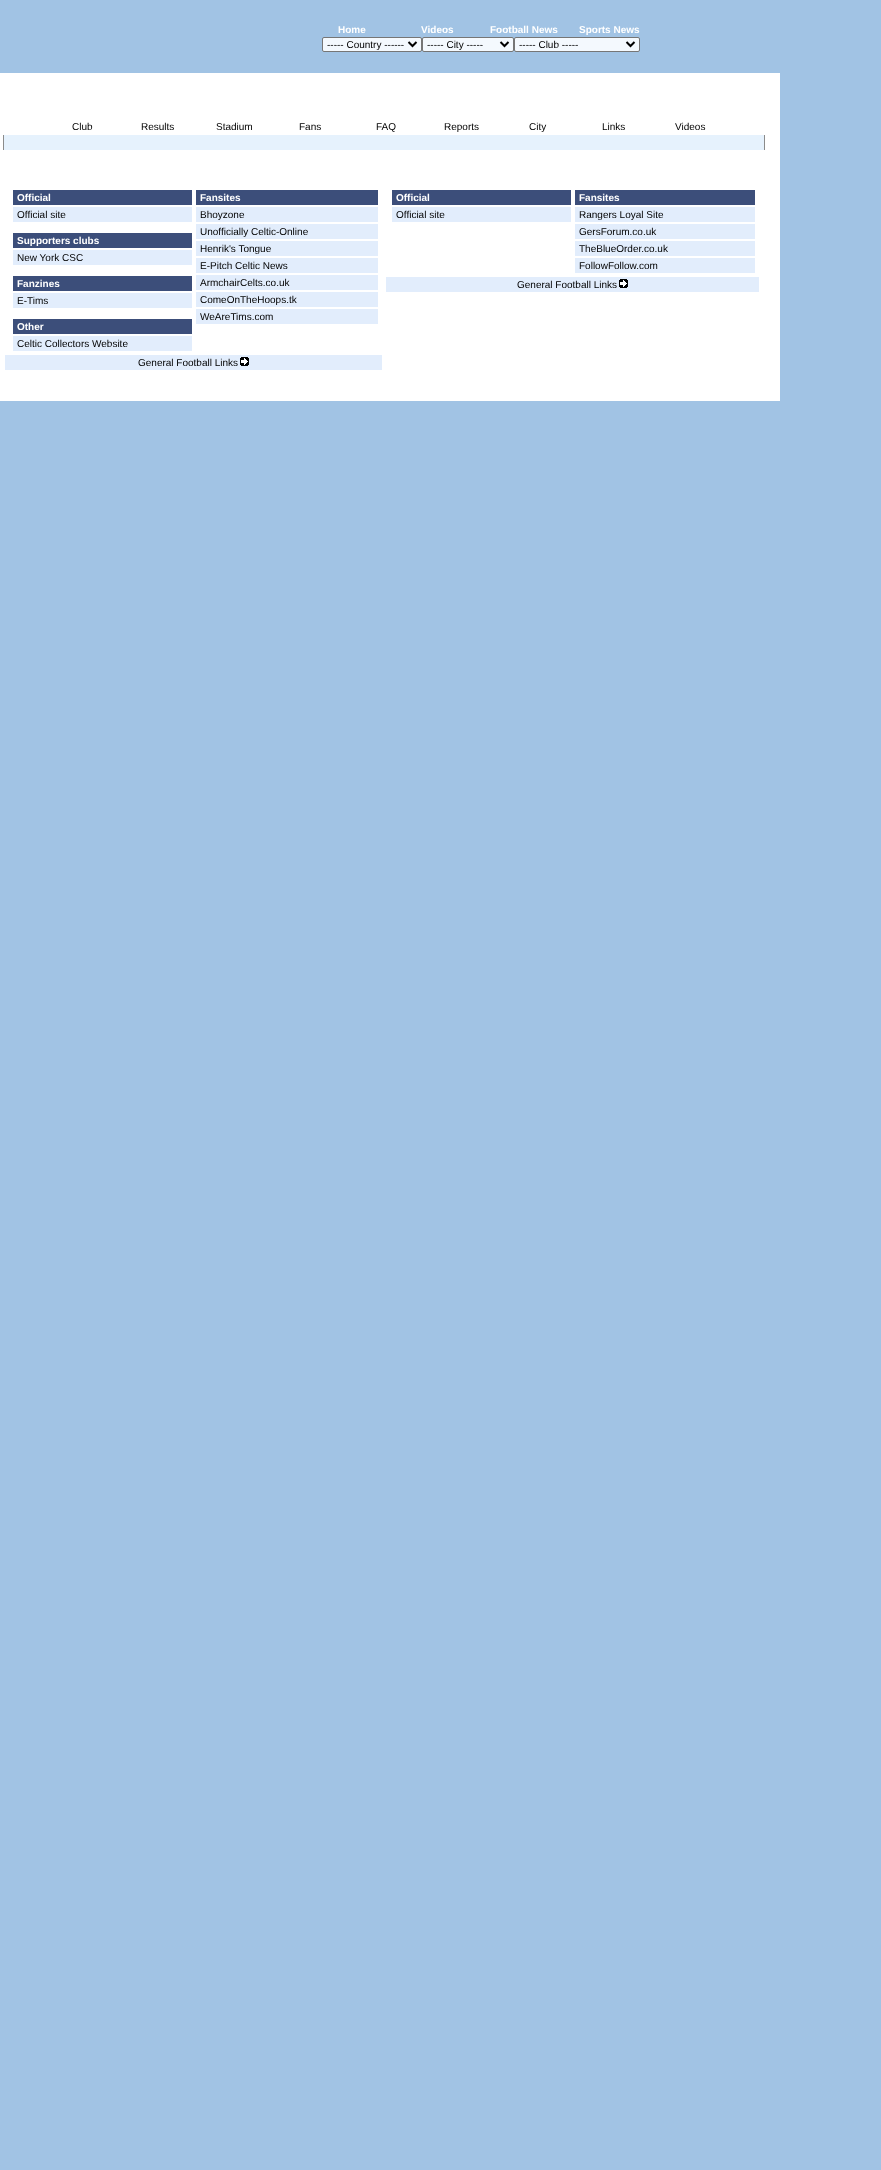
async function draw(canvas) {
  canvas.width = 881
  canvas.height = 2170
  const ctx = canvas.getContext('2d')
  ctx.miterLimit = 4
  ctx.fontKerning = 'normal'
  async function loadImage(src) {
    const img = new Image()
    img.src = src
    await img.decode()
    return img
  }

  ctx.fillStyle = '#a1c3e4'
  ctx.fillRect(0, 0, 881, 2170)
  ctx.font = 'bold 10px Liberation Sans'
  ctx.fillStyle = '#fff'
  ctx.fillText('Home', 338, 33)
  ctx.fillText('Videos', 421, 33)
  ctx.fillText('Football News', 490, 33)
  ctx.fillText('Sports News', 579, 33)
  ctx.fillStyle = '#f4f9fe'
  ctx.beginPath()
  ctx.roundRect(322.5, 37.5, 99, 14, 1.5)
  ctx.fill()
  ctx.strokeStyle = '#767676'
  ctx.stroke()
  ctx.beginPath()
  ctx.moveTo(408.5, 42)
  ctx.lineTo(412.5, 46)
  ctx.lineTo(416.5, 42)
  ctx.strokeStyle = '#000'
  ctx.lineWidth = 2
  ctx.stroke()
  ctx.font = '10px Liberation Sans'
  ctx.fillStyle = '#000'
  ctx.fillText('----- Country ------', 327, 48)
  ctx.fillStyle = '#f4f9fe'
  ctx.beginPath()
  ctx.roundRect(422.5, 37.5, 91, 14, 1.5)
  ctx.fill()
  ctx.strokeStyle = '#767676'
  ctx.lineWidth = 1
  ctx.stroke()
  ctx.beginPath()
  ctx.moveTo(500.5, 42)
  ctx.lineTo(504.5, 46)
  ctx.lineTo(508.5, 42)
  ctx.strokeStyle = '#000'
  ctx.lineWidth = 2
  ctx.stroke()
  ctx.fillStyle = '#000'
  ctx.fillText('----- City -----', 427, 48)
  ctx.fillStyle = '#f4f9fe'
  ctx.beginPath()
  ctx.roundRect(514.5, 37.5, 125, 14, 1.5)
  ctx.fill()
  ctx.strokeStyle = '#767676'
  ctx.lineWidth = 1
  ctx.stroke()
  ctx.beginPath()
  ctx.moveTo(626.5, 42)
  ctx.lineTo(630.5, 46)
  ctx.lineTo(634.5, 42)
  ctx.strokeStyle = '#000'
  ctx.lineWidth = 2
  ctx.stroke()
  ctx.fillStyle = '#000'
  ctx.fillText('----- Club -----', 519, 48)
  ctx.fillStyle = '#fff'
  ctx.fillRect(0, 73, 780, 328)
  ctx.fillStyle = '#000'
  ctx.fillText('Club', 72, 130)
  ctx.fillText('Results', 141, 130)
  ctx.fillText('Stadium', 216, 130)
  ctx.fillText('Fans', 299, 130)
  ctx.fillText('FAQ', 376, 130)
  ctx.fillText('Reports', 444, 130)
  ctx.fillText('City', 529, 130)
  ctx.fillText('Links', 602, 130)
  ctx.fillText('Videos', 675, 130)
  ctx.fillStyle = '#e6f2fd'
  ctx.fillRect(4, 135, 760, 15)
  ctx.fillStyle = '#8b8b8b'
  ctx.fillRect(764, 135, 1, 15)
  ctx.fillRect(3, 135, 1, 15)
  ctx.fillStyle = '#3c4e7a'
  ctx.fillRect(13, 190, 179, 15)
  ctx.font = 'bold 10px Liberation Sans'
  ctx.fillStyle = '#fff'
  ctx.fillText('Official', 17, 201)
  ctx.fillStyle = '#e2edfc'
  ctx.fillRect(13, 207, 179, 15)
  ctx.font = '10px Liberation Sans'
  ctx.fillStyle = '#000'
  ctx.fillText('Official site', 17, 218)
  ctx.fillStyle = '#3c4e7a'
  ctx.fillRect(13, 233, 179, 15)
  ctx.font = 'bold 10px Liberation Sans'
  ctx.fillStyle = '#fff'
  ctx.fillText('Supporters clubs', 17, 244)
  ctx.fillStyle = '#e2edfc'
  ctx.fillRect(13, 250, 179, 15)
  ctx.font = '10px Liberation Sans'
  ctx.fillStyle = '#000'
  ctx.fillText('New York CSC', 17, 261)
  ctx.fillStyle = '#3c4e7a'
  ctx.fillRect(13, 276, 179, 15)
  ctx.font = 'bold 10px Liberation Sans'
  ctx.fillStyle = '#fff'
  ctx.fillText('Fanzines', 17, 287)
  ctx.fillStyle = '#e2edfc'
  ctx.fillRect(13, 293, 179, 15)
  ctx.font = '10px Liberation Sans'
  ctx.fillStyle = '#000'
  ctx.fillText('E-Tims', 17, 304)
  ctx.fillStyle = '#3c4e7a'
  ctx.fillRect(13, 319, 179, 15)
  ctx.font = 'bold 10px Liberation Sans'
  ctx.fillStyle = '#fff'
  ctx.fillText('Other', 17, 330)
  ctx.fillStyle = '#e2edfc'
  ctx.fillRect(13, 336, 179, 15)
  ctx.font = '10px Liberation Sans'
  ctx.fillStyle = '#000'
  ctx.fillText('Celtic Collectors Website', 17, 347)
  ctx.fillStyle = '#3c4e7a'
  ctx.fillRect(196, 190, 182, 15)
  ctx.font = 'bold 10px Liberation Sans'
  ctx.fillStyle = '#fff'
  ctx.fillText('Fansites', 200, 201)
  ctx.fillStyle = '#e2edfc'
  ctx.fillRect(196, 207, 182, 15)
  ctx.font = '10px Liberation Sans'
  ctx.fillStyle = '#000'
  ctx.fillText('Bhoyzone', 200, 218)
  ctx.fillStyle = '#e2edfc'
  ctx.fillRect(196, 224, 182, 15)
  ctx.fillStyle = '#000'
  ctx.fillText('Unofficially Celtic-Online', 200, 235)
  ctx.fillStyle = '#e2edfc'
  ctx.fillRect(196, 241, 182, 15)
  ctx.fillStyle = '#000'
  ctx.fillText('Henrik\'s Tongue', 200, 252)
  ctx.fillStyle = '#e2edfc'
  ctx.fillRect(196, 258, 182, 15)
  ctx.fillStyle = '#000'
  ctx.fillText('E-Pitch Celtic News', 200, 269)
  ctx.fillStyle = '#e2edfc'
  ctx.fillRect(196, 275, 182, 15)
  ctx.fillStyle = '#000'
  ctx.fillText('ArmchairCelts.co.uk', 200, 286)
  ctx.fillStyle = '#e2edfc'
  ctx.fillRect(196, 292, 182, 15)
  ctx.fillStyle = '#000'
  ctx.fillText('ComeOnTheHoops.tk', 200, 303)
  ctx.fillStyle = '#e2edfc'
  ctx.fillRect(196, 309, 182, 15)
  ctx.fillStyle = '#000'
  ctx.fillText('WeAreTims.com', 200, 320)
  ctx.fillStyle = '#e2edfc'
  ctx.fillRect(5, 355, 377, 15)
  ctx.fillStyle = '#000'
  ctx.fillText('General Football Links', 138, 366)
  ctx.drawImage(await loadImage('image0.png'), 240, 357, 9, 9)
  ctx.fillStyle = '#3c4e7a'
  ctx.fillRect(392, 190, 179, 15)
  ctx.font = 'bold 10px Liberation Sans'
  ctx.fillStyle = '#fff'
  ctx.fillText('Official', 396, 201)
  ctx.fillStyle = '#e2edfc'
  ctx.fillRect(392, 207, 179, 15)
  ctx.font = '10px Liberation Sans'
  ctx.fillStyle = '#000'
  ctx.fillText('Official site', 396, 218)
  ctx.fillStyle = '#3c4e7a'
  ctx.fillRect(575, 190, 180, 15)
  ctx.font = 'bold 10px Liberation Sans'
  ctx.fillStyle = '#fff'
  ctx.fillText('Fansites', 579, 201)
  ctx.fillStyle = '#e2edfc'
  ctx.fillRect(575, 207, 180, 15)
  ctx.font = '10px Liberation Sans'
  ctx.fillStyle = '#000'
  ctx.fillText('Rangers Loyal Site', 579, 218)
  ctx.fillStyle = '#e2edfc'
  ctx.fillRect(575, 224, 180, 15)
  ctx.fillStyle = '#000'
  ctx.fillText('GersForum.co.uk', 579, 235)
  ctx.fillStyle = '#e2edfc'
  ctx.fillRect(575, 241, 180, 15)
  ctx.fillStyle = '#000'
  ctx.fillText('TheBlueOrder.co.uk', 579, 252)
  ctx.fillStyle = '#e2edfc'
  ctx.fillRect(575, 258, 180, 15)
  ctx.fillStyle = '#000'
  ctx.fillText('FollowFollow.com', 579, 269)
  ctx.fillStyle = '#e2edfc'
  ctx.fillRect(386, 277, 373, 15)
  ctx.fillStyle = '#000'
  ctx.fillText('General Football Links', 517, 288)
  ctx.drawImage(await loadImage('image0.png'), 619, 279, 9, 9)
}

draw(document.querySelector('canvas'))
